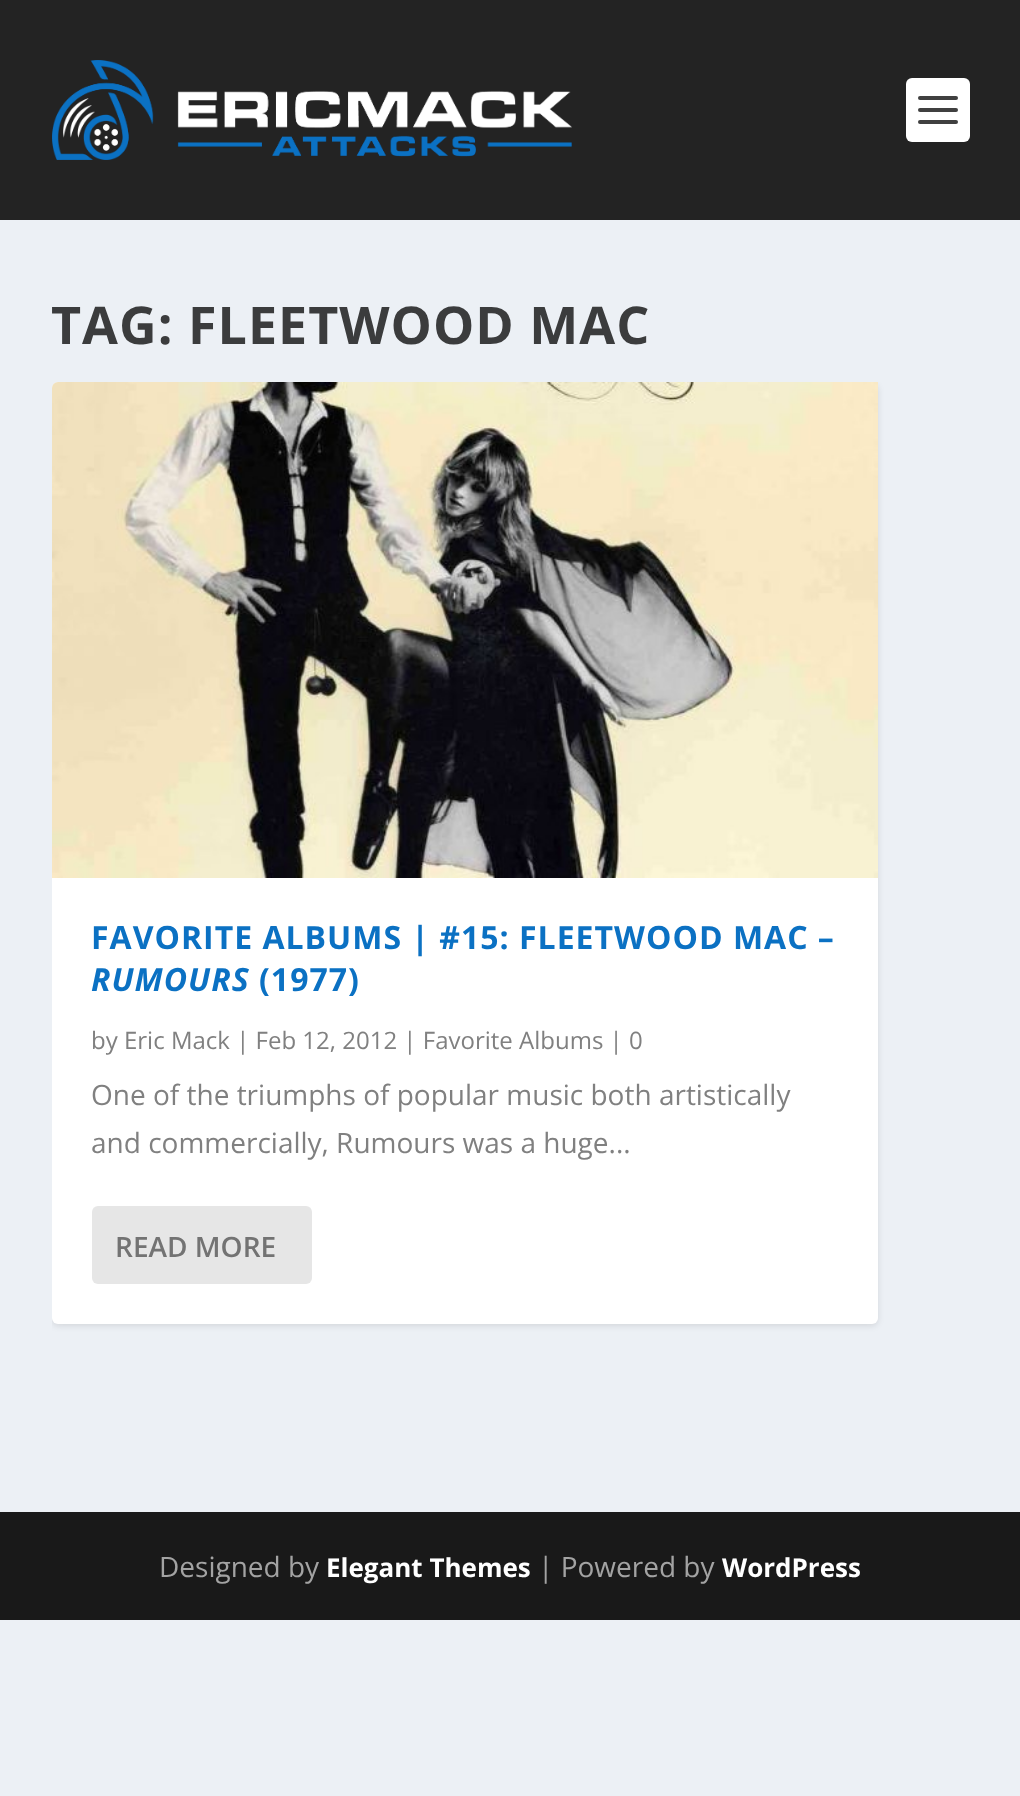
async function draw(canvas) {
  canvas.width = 1020
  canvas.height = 1796
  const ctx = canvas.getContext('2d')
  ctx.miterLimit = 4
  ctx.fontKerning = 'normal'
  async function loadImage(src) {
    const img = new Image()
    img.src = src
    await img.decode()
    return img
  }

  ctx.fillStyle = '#ecf0f5'
  ctx.fillRect(0, 0, 1020, 1796)
  ctx.fillStyle = '#232323'
  ctx.fillRect(0, 0, 1020, 220)
  ctx.drawImage(await loadImage('image0.png'), 52, 60, 520, 100)
  ctx.fillStyle = '#fff'
  ctx.beginPath()
  ctx.roundRect(906, 78, 64, 64, 6)
  ctx.fill()
  ctx.fillStyle = '#404040'
  ctx.beginPath()
  ctx.roundRect(918, 96, 40, 4, 2)
  ctx.fill()
  ctx.beginPath()
  ctx.roundRect(918, 108, 40, 4, 2)
  ctx.fill()
  ctx.beginPath()
  ctx.roundRect(918, 120, 40, 4, 2)
  ctx.fill()
  ctx.letterSpacing = '1px'
  ctx.font = 'bold 52px Open Sans'
  ctx.fillStyle = '#3b3c3d'
  ctx.fillText('TAG: FLEETWOOD MAC', 51, 344)
  ctx.save()
  ctx.beginPath()
  ctx.roundRect(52, 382, 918, 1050, 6)
  ctx.clip()
  ctx.fillStyle = '#0000001a'
  ctx.filter = 'blur(3px)'
  ctx.beginPath()
  ctx.roundRect(52, 384, 826, 942, 6)
  ctx.fill()
  ctx.filter = 'none'
  ctx.restore()
  ctx.fillStyle = '#fff'
  ctx.beginPath()
  ctx.roundRect(52, 382, 826, 942, 6)
  ctx.fill()
  ctx.drawImage(await loadImage('image1.png'), 52, 382, 826, 496)
  ctx.font = 'bold 32px Open Sans'
  ctx.fillStyle = '#0b71c3'
  ctx.fillText('FAVORITE ALBUMS | #15: FLEETWOOD MAC –', 91, 949)
  ctx.font = 'italic bold 32px Open Sans'
  ctx.fillText('RUMOURS', 91, 991)
  ctx.font = 'bold 32px Open Sans'
  ctx.fillText('(1977)', 259, 991)
  ctx.letterSpacing = '0px'
  ctx.font = '24px Open Sans'
  ctx.fillStyle = '#808080'
  ctx.fillText('by Eric Mack | Feb 12, 2012 | Favorite Albums | 0', 91, 1049)
  ctx.font = '28px Open Sans'
  ctx.fillText('One of the triumphs of popular music both artistically', 91, 1105)
  ctx.fillText('and commercially, Rumours was a huge...', 91, 1153)
  ctx.fillStyle = '#e6e6e6'
  ctx.beginPath()
  ctx.roundRect(92, 1206, 220, 78, 6)
  ctx.fill()
  ctx.font = '600 28px Open Sans'
  ctx.fillStyle = '#737373'
  ctx.fillText('READ MORE', 115, 1257)
  ctx.fillStyle = '#191919'
  ctx.fillRect(0, 1512, 1020, 108)
  ctx.font = '28px Open Sans'
  ctx.fillStyle = '#a3a3a3'
  ctx.fillText('Designed by', 159, 1577)
  ctx.font = 'bold 26px Open Sans'
  ctx.fillStyle = '#fff'
  ctx.fillText('Elegant Themes', 326, 1577)
  ctx.font = '28px Open Sans'
  ctx.fillStyle = '#a3a3a3'
  ctx.fillText('| Powered by', 538, 1577)
  ctx.font = 'bold 26px Open Sans'
  ctx.fillStyle = '#fff'
  ctx.fillText('WordPress', 722, 1577)
}

draw(document.querySelector('canvas'))
